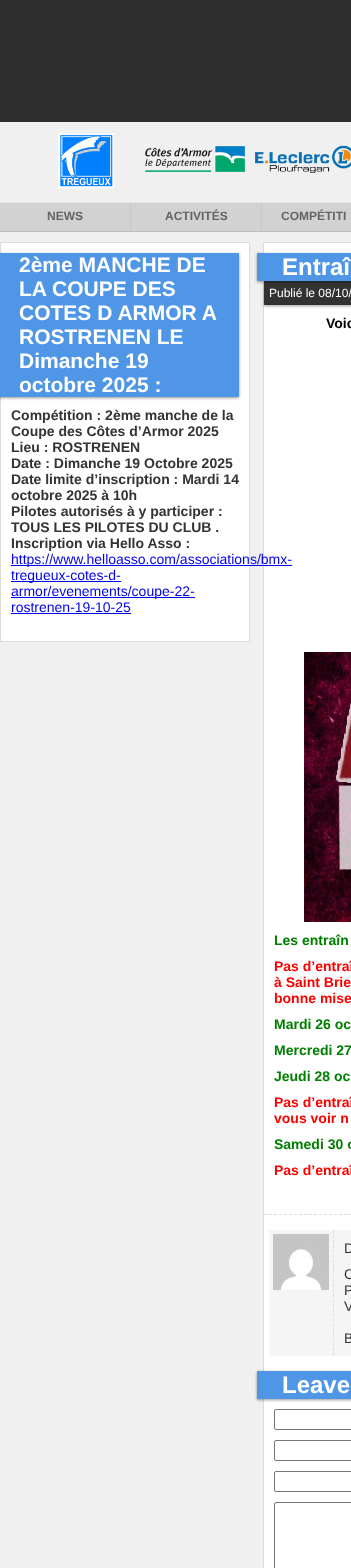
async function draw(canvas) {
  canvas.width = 351
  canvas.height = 1568
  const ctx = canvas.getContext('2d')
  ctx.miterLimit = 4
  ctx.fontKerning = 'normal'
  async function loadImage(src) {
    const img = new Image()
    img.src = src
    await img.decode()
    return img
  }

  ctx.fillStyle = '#2d2d2d'
  ctx.fillRect(0, 0, 351, 1568)
  ctx.fillStyle = '#f0f0f0'
  ctx.fillRect(0, 122, 351, 80)
  ctx.drawImage(await loadImage('image0.png'), 58, 133, 56, 56)
  ctx.drawImage(await loadImage('image1.png'), 145, 146, 100, 26)
  ctx.drawImage(await loadImage('image2.png'), 255, 145, 96, 28)
  ctx.fillStyle = '#d2d2d2'
  ctx.fillRect(0, 203, 351, 28)
  ctx.fillStyle = '#e6e6e6'
  ctx.fillRect(0, 202, 351, 1)
  ctx.fillStyle = '#bebebe'
  ctx.fillRect(0, 231, 351, 1)
  ctx.font = 'bold 12px Liberation Sans'
  ctx.fillStyle = '#646464'
  ctx.fillText('NEWS', 47, 220)
  ctx.fillStyle = '#c8c8c8'
  ctx.fillRect(130, 203, 1, 28)
  ctx.fillStyle = '#646464'
  ctx.fillText('ACTIVITÉS', 165, 220)
  ctx.fillStyle = '#c8c8c8'
  ctx.fillRect(261, 203, 1, 28)
  ctx.fillStyle = '#646464'
  ctx.fillText('COMPÉTITI', 281, 220)
  ctx.fillStyle = '#f0f0f0'
  ctx.fillRect(0, 232, 351, 1336)
  ctx.fillStyle = '#fff'
  ctx.beginPath()
  ctx.rect(0.5, 242.5, 249, 399)
  ctx.fill()
  ctx.strokeStyle = '#dcdcdc'
  ctx.stroke()
  ctx.fillStyle = '#00000066'
  ctx.filter = 'blur(1.5px)'
  ctx.beginPath()
  ctx.rect(-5, 254, 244, 144)
  ctx.fill()
  ctx.filter = 'none'
  ctx.fillStyle = '#4f96e6'
  ctx.fillRect(0, 253, 239, 144)
  ctx.font = 'bold 21px Liberation Sans'
  ctx.fillStyle = '#fff'
  ctx.fillText('2ème MANCHE DE', 19, 272)
  ctx.fillText('LA COUPE DES', 19, 296)
  ctx.fillText('COTES D ARMOR A', 19, 320)
  ctx.fillText('ROSTRENEN LE', 19, 344)
  ctx.fillText('Dimanche 19', 19, 368)
  ctx.fillText('octobre 2025 :', 19, 392)
  ctx.font = 'bold 14px Liberation Sans'
  ctx.fillStyle = '#333'
  ctx.fillText('Compétition : 2ème manche de la', 11, 420)
  ctx.fillText('Coupe des Côtes d’Armor 2025', 11, 436)
  ctx.fillText('Lieu : ROSTRENEN', 11, 452)
  ctx.fillText('Date : Dimanche 19 Octobre 2025', 11, 468)
  ctx.fillText('Date limite d’inscription : Mardi 14', 11, 484)
  ctx.fillText('octobre 2025 à 10h', 11, 500)
  ctx.fillText('Pilotes autorisés à y participer :', 11, 516)
  ctx.fillText('TOUS LES PILOTES DU CLUB .', 11, 532)
  ctx.fillText('Inscription via Hello Asso :', 11, 548)
  ctx.fillStyle = '#fff'
  ctx.beginPath()
  ctx.rect(263.5, 242.5, 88, 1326)
  ctx.fill()
  ctx.stroke()
  ctx.fillStyle = '#00e'
  ctx.fillRect(11, 565, 281, 1)
  ctx.font = '14px Liberation Sans'
  ctx.fillText('https://www.helloasso.com/associations/bmx-', 11, 564)
  ctx.fillRect(11, 581, 110, 1)
  ctx.fillText('tregueux-cotes-d-', 11, 580)
  ctx.fillRect(11, 597, 184, 1)
  ctx.fillText('armor/evenements/coupe-22-', 11, 596)
  ctx.fillText('rostrenen-19-10-25', 11, 612)
  ctx.fillRect(11, 613, 120, 1)
  ctx.fillStyle = '#00000066'
  ctx.filter = 'blur(1.5px)'
  ctx.beginPath()
  ctx.rect(264, 282, 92, 24)
  ctx.fill()
  ctx.filter = 'none'
  ctx.fillStyle = '#323232'
  ctx.fillRect(264, 281, 87, 24)
  ctx.fillStyle = '#00000066'
  ctx.filter = 'blur(1.5px)'
  ctx.beginPath()
  ctx.rect(257, 254, 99, 28)
  ctx.fill()
  ctx.filter = 'none'
  ctx.fillStyle = '#4f96e6'
  ctx.fillRect(257, 253, 94, 28)
  ctx.font = 'bold 24px Liberation Sans'
  ctx.fillStyle = '#fff'
  ctx.fillText('Entraî', 282, 275)
  ctx.font = '12px Liberation Sans'
  ctx.fillText('Publié le 08/10/', 269, 297)
  ctx.font = 'bold 14px Liberation Sans'
  ctx.fillStyle = '#000'
  ctx.fillText('Voic', 326, 328)
  ctx.drawImage(await loadImage('image3.png'), 304, 652, 47, 270)
  ctx.fillStyle = '#008000'
  ctx.fillText('Les entraîn', 274, 945)
  ctx.fillStyle = '#f00'
  ctx.fillText('Pas d’entraî', 274, 971)
  ctx.fillText('à Saint Brie', 274, 987)
  ctx.fillText('bonne mise', 274, 1003)
  ctx.fillStyle = '#008000'
  ctx.fillText('Mardi 26 oc', 274, 1029)
  ctx.fillText('Mercredi 27', 274, 1055)
  ctx.fillText('Jeudi 28 oc', 274, 1081)
  ctx.fillStyle = '#f00'
  ctx.fillText('Pas d’entraî', 274, 1107)
  ctx.fillText('vous voir n', 274, 1123)
  ctx.fillStyle = '#008000'
  ctx.fillText('Samedi 30 o', 274, 1149)
  ctx.fillStyle = '#f00'
  ctx.fillText('Pas d’entraî', 274, 1175)
  ctx.beginPath()
  ctx.moveTo(264, 1214.5)
  ctx.lineTo(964, 1214.5)
  ctx.setLineDash([3, 2.01])
  ctx.stroke()
  ctx.fillStyle = '#f5f5f5'
  ctx.fillRect(269, 1230, 82, 126)
  ctx.drawImage(await loadImage('image4.png'), 273, 1234, 56, 56)
  ctx.beginPath()
  ctx.moveTo(333.5, 1230)
  ctx.lineTo(333.5, 1356)
  ctx.setLineDash([3, 1.92])
  ctx.stroke()
  ctx.font = '14px Liberation Sans'
  ctx.fillStyle = '#333'
  ctx.fillText('D', 344, 1253)
  ctx.fillText('C', 344, 1279)
  ctx.fillText('P', 344, 1295)
  ctx.fillText('V', 344, 1311)
  ctx.fillText('B', 344, 1343)
  ctx.fillStyle = '#00000066'
  ctx.filter = 'blur(1.5px)'
  ctx.beginPath()
  ctx.rect(257, 1372, 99, 28)
  ctx.fill()
  ctx.filter = 'none'
  ctx.fillStyle = '#4f96e6'
  ctx.fillRect(257, 1371, 94, 28)
  ctx.font = 'bold 24px Liberation Sans'
  ctx.fillStyle = '#fff'
  ctx.fillText('Leave', 282, 1393)
  ctx.beginPath()
  ctx.roundRect(274.5, 1409.5, 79, 20, 1.5)
  ctx.strokeStyle = '#767676'
  ctx.setLineDash([])
  ctx.stroke()
  ctx.beginPath()
  ctx.roundRect(274.5, 1440.5, 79, 20, 1.5)
  ctx.stroke()
  ctx.beginPath()
  ctx.roundRect(274.5, 1471.5, 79, 20, 1.5)
  ctx.stroke()
  ctx.beginPath()
  ctx.roundRect(274.5, 1502.5, 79, 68, 1.5)
  ctx.stroke()
}

draw(document.querySelector('canvas'))
